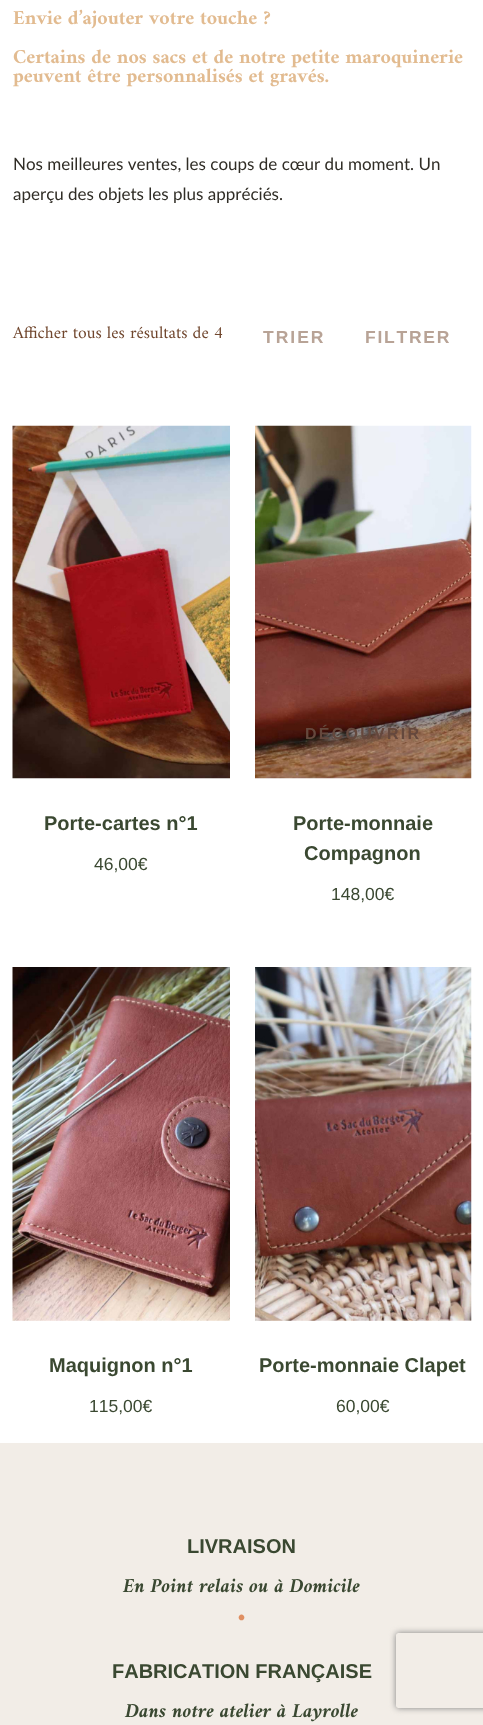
async function draw(canvas) {
  canvas.width = 483
  canvas.height = 1725
  const ctx = canvas.getContext('2d')
  ctx.miterLimit = 4
  ctx.fontKerning = 'none'
  async function loadImage(src) {
    const img = new Image()
    img.src = src
    await img.decode()
    return img
  }

  ctx.fillStyle = '#fff'
  ctx.fillRect(0, 0, 483, 1725)
  ctx.font = 'bold 20px Amiri'
  ctx.fillStyle = '#e2bb90'
  ctx.fillText('Envie d’ajouter votre touche ?', 13, 24)
  ctx.fillText('Certains de nos sacs et de notre petite maroquinerie', 13, 63)
  ctx.fillText('peuvent être personnalisés et gravés.', 13, 82)
  ctx.font = '17px Lato'
  ctx.fillStyle = '#302d26'
  ctx.fillText('Nos meilleures ventes, les coups de cœur du moment. Un', 13, 170)
  ctx.fillText('aperçu des objets les plus appréciés.', 13, 200)
  ctx.font = '17.5px Amiri'
  ctx.fillStyle = '#70462d'
  ctx.fillText('Afficher tous les résultats de 4', 13, 338)
  ctx.letterSpacing = '2px'
  ctx.font = 'bold 17.5px Liberation Sans'
  ctx.fillStyle = '#b8a396'
  ctx.fillText('TRIER', 263, 343)
  ctx.letterSpacing = '1.75px'
  ctx.fillText('FILTRER', 365, 343)
  ctx.drawImage(await loadImage('image0.png'), 12, 425, 218, 354)
  ctx.letterSpacing = '0px'
  ctx.font = 'bold 20px Liberation Sans'
  ctx.fillStyle = '#3a4831'
  ctx.fillText('Porte-cartes n°1', 44, 830)
  ctx.font = '17.5px Liberation Sans'
  ctx.fillText('46,00€', 94, 870)
  ctx.drawImage(await loadImage('image1.png'), 255, 425, 217, 354)
  ctx.letterSpacing = '2.25px'
  ctx.font = 'bold 16px Liberation Sans'
  ctx.fillStyle = '#65483d'
  ctx.fillText('DÉCOUVRIR', 305, 739)
  ctx.letterSpacing = '0px'
  ctx.font = 'bold 20px Liberation Sans'
  ctx.fillStyle = '#3a4831'
  ctx.fillText('Porte-monnaie', 293, 830)
  ctx.fillText('Compagnon', 304, 860)
  ctx.font = '17.5px Liberation Sans'
  ctx.fillText('148,00€', 331, 900)
  ctx.drawImage(await loadImage('image2.png'), 12, 967, 218, 354)
  ctx.font = 'bold 20px Liberation Sans'
  ctx.fillText('Maquignon n°1', 49, 1372)
  ctx.font = '17.5px Liberation Sans'
  ctx.fillText('115,00€', 89, 1412)
  ctx.drawImage(await loadImage('image3.png'), 255, 967, 217, 354)
  ctx.font = 'bold 20px Liberation Sans'
  ctx.fillText('Porte-monnaie Clapet', 259, 1372)
  ctx.font = '17.5px Liberation Sans'
  ctx.fillText('60,00€', 336, 1412)
  ctx.fillStyle = '#f2ede7'
  ctx.fillRect(0, 1443, 483, 282)
  ctx.font = 'bold 20px Liberation Sans'
  ctx.fillStyle = '#3a4831'
  ctx.fillText('LIVRAISON', 187, 1553)
  ctx.font = 'italic bold 20px Amiri'
  ctx.fillText('En Point relais ou à Domicile', 123, 1592)
  ctx.font = 'bold 20px Liberation Sans'
  ctx.fillStyle = '#e08f62'
  ctx.fillText('•', 238, 1624)
  ctx.fillStyle = '#3a4831'
  ctx.fillText('FABRICATION FRANÇAISE', 112, 1678)
  ctx.font = 'italic bold 20px Amiri'
  ctx.fillText('Dans notre atelier à Layrolle', 125, 1717)
  ctx.save()
  ctx.beginPath()
  ctx.moveTo(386, 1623)
  ctx.lineTo(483, 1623)
  ctx.lineTo(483, 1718)
  ctx.lineTo(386, 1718)
  ctx.closePath()
  ctx.moveTo(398.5, 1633)
  ctx.lineTo(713.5, 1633)
  ctx.bezierCurveTo(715, 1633, 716, 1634, 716, 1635.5)
  ctx.lineTo(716, 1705.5)
  ctx.bezierCurveTo(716, 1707, 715, 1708, 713.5, 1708)
  ctx.lineTo(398.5, 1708)
  ctx.bezierCurveTo(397, 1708, 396, 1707, 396, 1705.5)
  ctx.lineTo(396, 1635.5)
  ctx.bezierCurveTo(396, 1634, 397, 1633, 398.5, 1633)
  ctx.closePath()
  ctx.clip('evenodd')
  ctx.fillStyle = '#808080'
  ctx.filter = 'blur(3px)'
  ctx.beginPath()
  ctx.roundRect(396, 1633, 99, 75, 2.5)
  ctx.fill()
  ctx.filter = 'none'
  ctx.restore()
}

draw(document.querySelector('canvas'))
